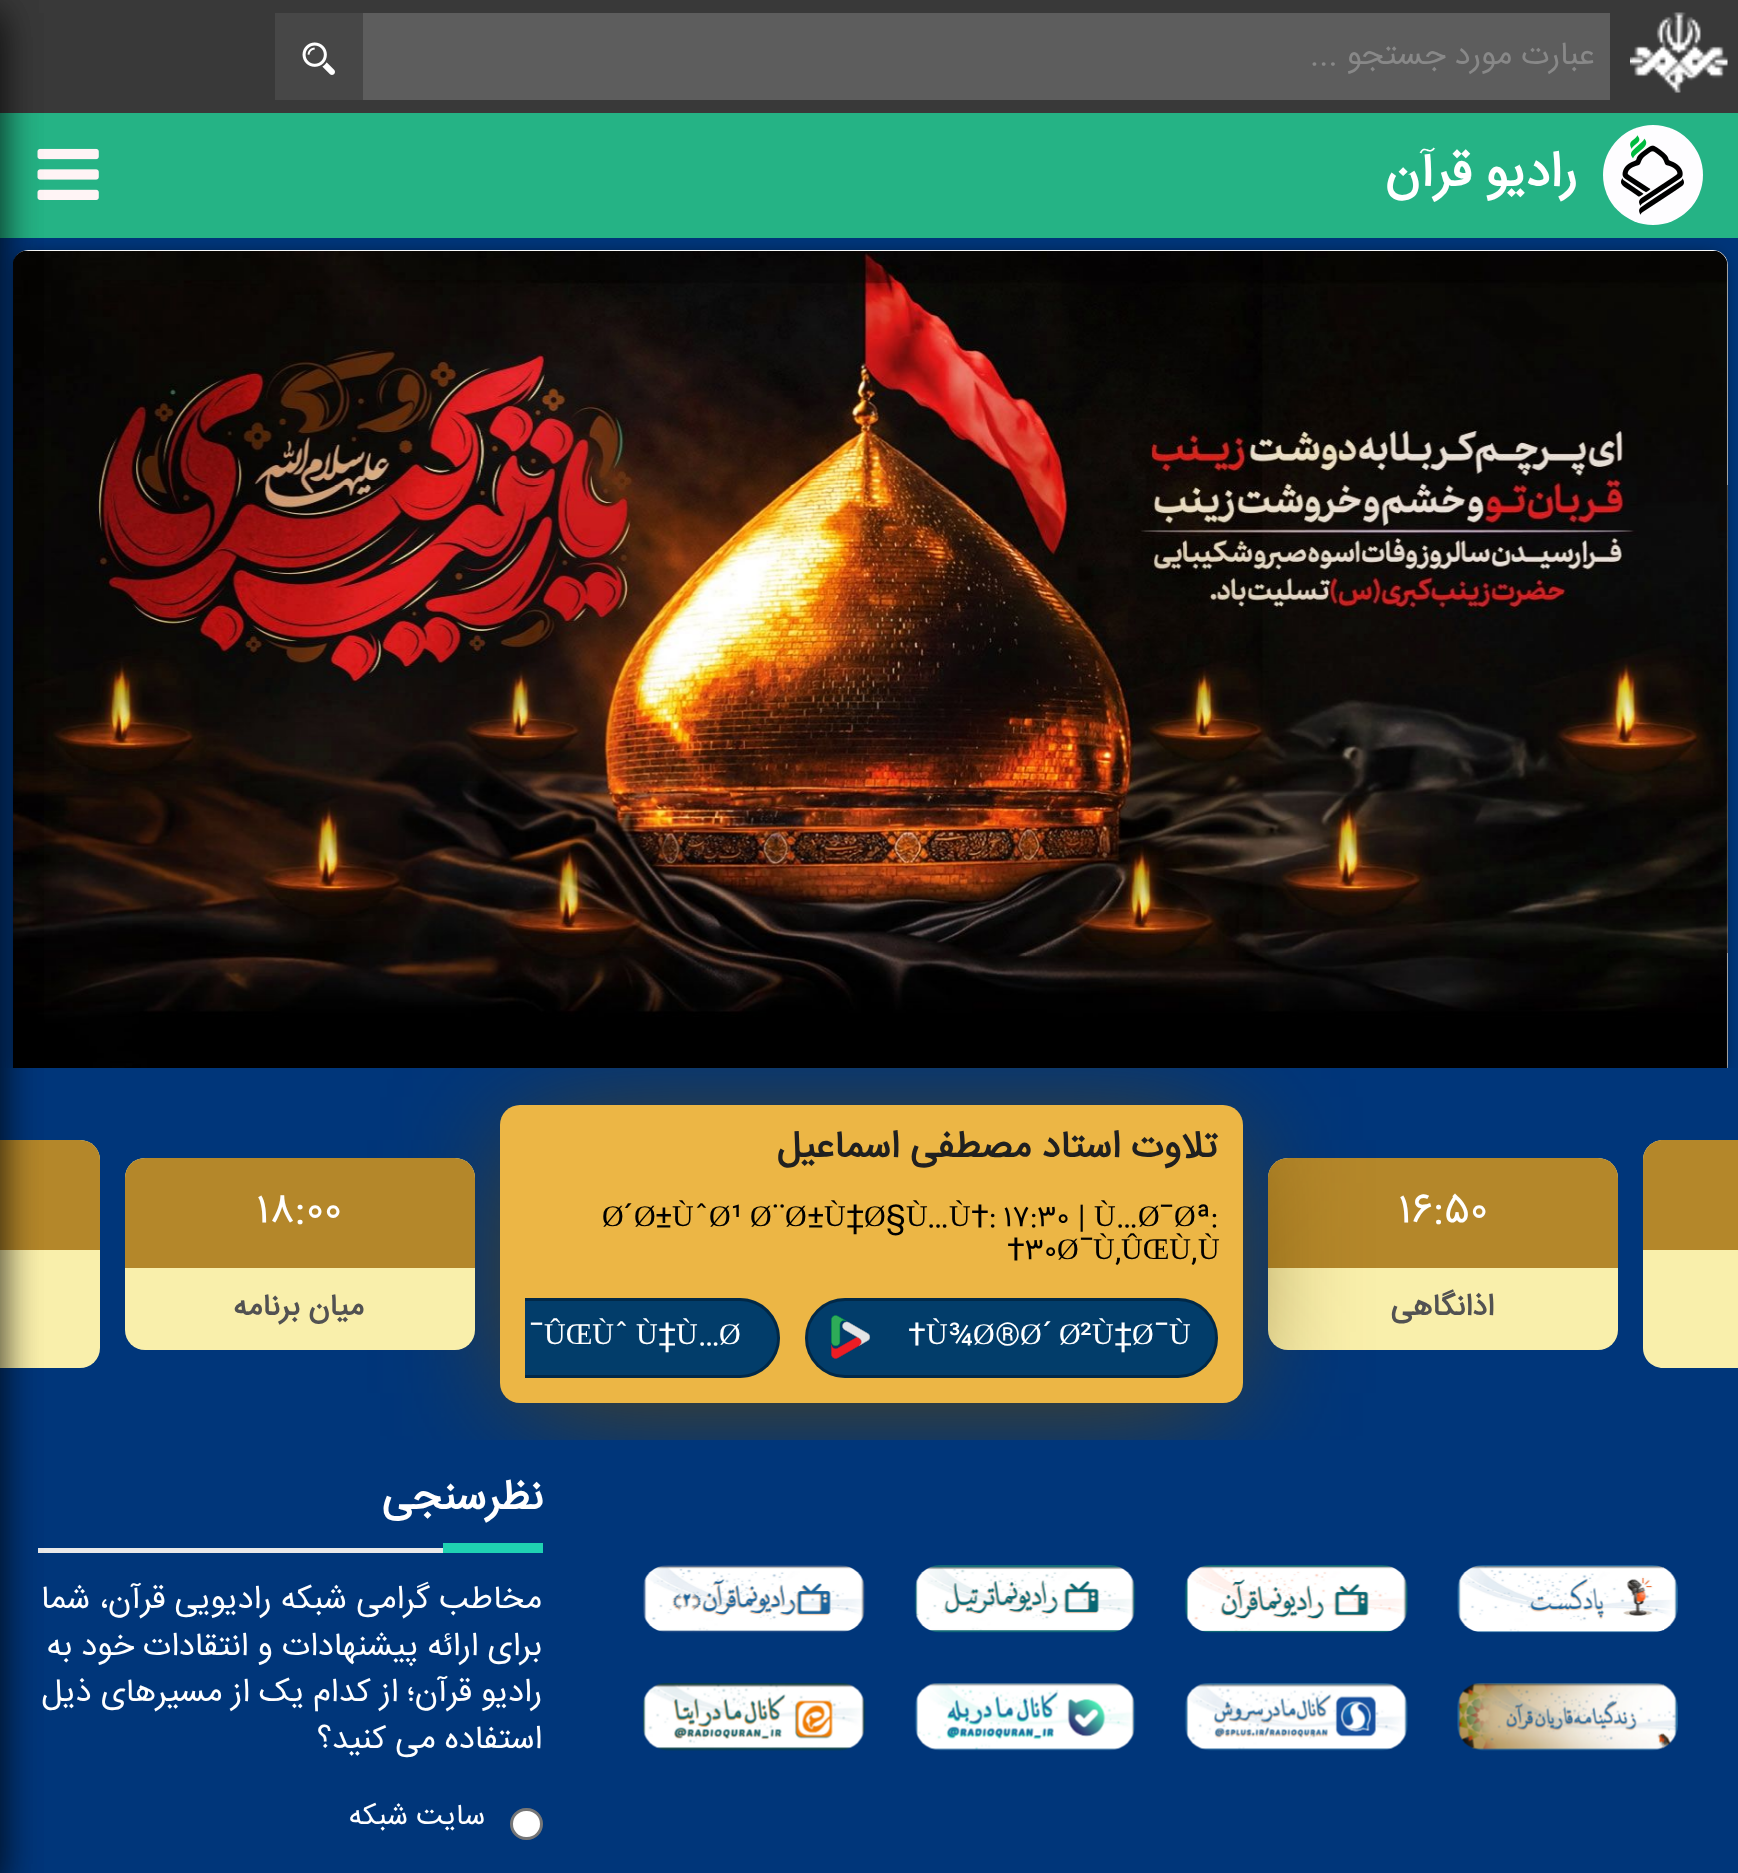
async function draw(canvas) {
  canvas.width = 1738
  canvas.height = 1873
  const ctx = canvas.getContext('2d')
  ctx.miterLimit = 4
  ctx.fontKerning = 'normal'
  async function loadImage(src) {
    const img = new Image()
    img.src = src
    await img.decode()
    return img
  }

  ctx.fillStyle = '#00367a'
  ctx.fillRect(0, 0, 1738, 1873)
  ctx.fillStyle = '#393939'
  ctx.fillRect(0, 0, 1738, 113)
  ctx.drawImage(await loadImage('image0.png'), 1630, 12, 98, 81)
  ctx.fillStyle = '#5d5d5d'
  ctx.fillRect(363, 13, 1247, 87)
  ctx.direction = 'rtl'
  ctx.font = '32.5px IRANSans'
  ctx.fillStyle = '#888'
  ctx.fillText('عبارت مورد جستجو ...', 1595, 64)
  ctx.fillStyle = '#474747'
  ctx.fillRect(275, 13, 88, 87)
  ctx.drawImage(await loadImage('image1.png'), 302, 42, 33, 33)
  ctx.save()
  ctx.beginPath()
  ctx.rect(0, 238, 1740, 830)
  ctx.clip()
  ctx.fillStyle = '#000'
  ctx.filter = 'blur(10px)'
  ctx.beginPath()
  ctx.roundRect(23, 260, 1695, 810, 5)
  ctx.fill()
  ctx.filter = 'none'
  ctx.restore()
  ctx.fillStyle = '#25b385'
  ctx.fillRect(0, 113, 1738, 125)
  ctx.fillStyle = '#fefdff'
  ctx.beginPath()
  ctx.arc(1653, 175, 50, 0, 2 * Math.PI)
  ctx.fill()
  ctx.drawImage(await loadImage('image2.png'), 1621, 135, 63, 80)
  ctx.font = 'bold 49px IRANSans'
  ctx.fillStyle = '#fff'
  ctx.fillText('رادیو قرآن', 1577, 186)
  ctx.drawImage(await loadImage('image3.png'), 37, 148, 62, 52)
  ctx.save()
  ctx.beginPath()
  ctx.roundRect(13, 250, 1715, 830, 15)
  ctx.clip()
  ctx.beginPath()
  ctx.moveTo(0, 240)
  ctx.lineTo(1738, 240)
  ctx.lineTo(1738, 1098)
  ctx.lineTo(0, 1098)
  ctx.closePath()
  ctx.moveTo(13, 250)
  ctx.lineTo(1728, 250)
  ctx.lineTo(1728, 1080)
  ctx.lineTo(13, 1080)
  ctx.closePath()
  ctx.clip('evenodd')
  ctx.fillStyle = '#0000004d'
  ctx.filter = 'blur(4px)'
  ctx.beginPath()
  ctx.rect(10, 253, 1720, 832)
  ctx.fill()
  ctx.filter = 'none'
  ctx.restore()
  ctx.save()
  ctx.beginPath()
  ctx.roundRect(13, 250, 1715, 830, 15)
  ctx.clip()
  ctx.fillStyle = '#f8f8f8'
  ctx.beginPath()
  ctx.roundRect(13, 250, 1715, 818, [15, 15, 0, 0])
  ctx.fill()
  ctx.restore()
  ctx.drawImage(await loadImage('image4.png'), 13, 251, 1715, 817)
  ctx.fillStyle = '#f9efab'
  ctx.beginPath()
  ctx.roundRect(0, 1140, 100, 228, [0, 20, 20, 0])
  ctx.fill()
  ctx.fillStyle = '#b4872a'
  ctx.beginPath()
  ctx.roundRect(0, 1140, 100, 110, [0, 20, 0, 0])
  ctx.fill()
  ctx.fillStyle = '#f9efab'
  ctx.beginPath()
  ctx.roundRect(1268, 1158, 350, 192, 20)
  ctx.fill()
  ctx.fillStyle = '#b4872a'
  ctx.beginPath()
  ctx.roundRect(1268, 1158, 350, 110, [20, 20, 0, 0])
  ctx.fill()
  ctx.save()
  ctx.beginPath()
  ctx.rect(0, 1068, 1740, 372)
  ctx.clip()
  ctx.fillStyle = '#654400'
  ctx.filter = 'blur(65px)'
  ctx.beginPath()
  ctx.rect(523, 1140, 697, 253)
  ctx.fill()
  ctx.filter = 'none'
  ctx.restore()
  ctx.fillStyle = '#e9e9e9'
  ctx.fillRect(38, 1548, 405, 5)
  ctx.fillStyle = '#00000080'
  ctx.filter = 'blur(19px)'
  ctx.beginPath()
  ctx.rect(-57, 13, 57, 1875)
  ctx.fill()
  ctx.filter = 'none'
  ctx.fillStyle = '#f9efab'
  ctx.beginPath()
  ctx.moveTo(1663, 1140)
  ctx.lineTo(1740, 1140)
  ctx.lineTo(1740, 1368)
  ctx.lineTo(1663, 1368)
  ctx.bezierCurveTo(1652, 1368, 1643, 1359, 1643, 1348)
  ctx.lineTo(1643, 1160)
  ctx.bezierCurveTo(1643, 1149, 1652, 1140, 1663, 1140)
  ctx.closePath()
  ctx.fill()
  ctx.fillStyle = '#b4872a'
  ctx.beginPath()
  ctx.moveTo(1663, 1140)
  ctx.lineTo(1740, 1140)
  ctx.lineTo(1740, 1250)
  ctx.lineTo(1643, 1250)
  ctx.lineTo(1643, 1160)
  ctx.bezierCurveTo(1643, 1149, 1652, 1140, 1663, 1140)
  ctx.closePath()
  ctx.fill()
  ctx.direction = 'ltr'
  ctx.font = '42.5px IRANSans'
  ctx.fillStyle = '#fff'
  ctx.fillText('۱۶:۵۰', 1398, 1222)
  ctx.direction = 'rtl'
  ctx.font = 'bold 30px IRANSans'
  ctx.fillStyle = '#525252'
  ctx.fillText('اذانگاهی', 1494, 1315)
  ctx.fillStyle = '#ecb645'
  ctx.beginPath()
  ctx.roundRect(500, 1105, 743, 298, 20)
  ctx.fill()
  ctx.font = 'bold 37.5px IRANSans'
  ctx.fillStyle = '#202020'
  ctx.fillText('تلاوت استاد مصطفی اسماعیل', 1217, 1157)
  ctx.direction = 'ltr'
  ctx.font = '30px IRANSans'
  ctx.fillStyle = '#000'
  ctx.fillText('ª:', 1196, 1226)
  ctx.font = '30px Liberation Serif'
  ctx.fillText('Ø', 1174, 1226)
  ctx.font = '30px IRANSans'
  ctx.fillText('¯', 1159, 1226)
  ctx.font = '30px Liberation Serif'
  ctx.fillText('Ø', 1138, 1226)
  ctx.font = '30px IRANSans'
  ctx.fillText('…', 1116, 1226)
  ctx.font = '30px Liberation Serif'
  ctx.fillText('Ù', 1094, 1226)
  ctx.font = '30px IRANSans'
  ctx.fillText('۱۷:۳۰ |', 1003, 1226)
  ctx.fillText('‡:', 971, 1226)
  ctx.font = '30px Liberation Serif'
  ctx.fillText('Ù', 949, 1226)
  ctx.font = '30px IRANSans'
  ctx.fillText('…', 927, 1226)
  ctx.font = '30px Liberation Serif'
  ctx.fillText('Ù', 906, 1226)
  ctx.font = '30px IRANSans'
  ctx.fillText('§', 886, 1226)
  ctx.font = '30px Liberation Serif'
  ctx.fillText('Ø', 864, 1226)
  ctx.font = '30px IRANSans'
  ctx.fillText('†', 846, 1226)
  ctx.font = '30px Liberation Serif'
  ctx.fillText('Ù', 824, 1226)
  ctx.font = '30px IRANSans'
  ctx.fillText('±', 807, 1226)
  ctx.font = '30px Liberation Serif'
  ctx.fillText('Ø', 785, 1226)
  ctx.font = '30px IRANSans'
  ctx.fillText('¨', 772, 1226)
  ctx.font = '30px Liberation Serif'
  ctx.fillText('Ø', 750, 1226)
  ctx.font = '30px IRANSans'
  ctx.fillText('¹', 731, 1226)
  ctx.font = '30px Liberation Serif'
  ctx.fillText('Ø', 709, 1226)
  ctx.font = '30px IRANSans'
  ctx.fillText('ˆ', 694, 1226)
  ctx.font = '30px Liberation Serif'
  ctx.fillText('Ù', 672, 1226)
  ctx.font = '30px IRANSans'
  ctx.fillText('±', 655, 1226)
  ctx.font = '30px Liberation Serif'
  ctx.fillText('Ø', 634, 1226)
  ctx.font = '30px IRANSans'
  ctx.fillText('´', 623, 1226)
  ctx.font = '30px Liberation Serif'
  ctx.fillText('Ø', 602, 1226)
  ctx.fillText('Ù', 1198, 1259)
  ctx.fillText('ÛŒÙ', 1121, 1259)
  ctx.fillText('Ù', 1093, 1259)
  ctx.font = '30px IRANSans'
  ctx.fillText('¯', 1079, 1259)
  ctx.font = '30px Liberation Serif'
  ctx.fillText('Ø', 1057, 1259)
  ctx.font = '30px IRANSans'
  ctx.fillText('۳۰', 1025, 1259)
  ctx.fillText('‡', 1007, 1259)
  ctx.fillText('‚', 1191, 1259)
  ctx.fillText('‚', 1115, 1259)
  ctx.fillStyle = '#023d6a'
  ctx.beginPath()
  ctx.roundRect(805, 1298, 413, 80, 40)
  ctx.fill()
  ctx.beginPath()
  ctx.roundRect(806.5, 1299.5, 410, 77, 38.5)
  ctx.strokeStyle = '#00000054'
  ctx.lineWidth = 3
  ctx.stroke()
  ctx.font = '30px Liberation Serif'
  ctx.fillStyle = '#fff'
  ctx.fillText('Ù', 1169, 1344)
  ctx.font = '30px IRANSans'
  ctx.fillText('¯', 1154, 1344)
  ctx.font = '30px Liberation Serif'
  ctx.fillText('Ø', 1132, 1344)
  ctx.font = '30px IRANSans'
  ctx.fillText('†', 1114, 1344)
  ctx.font = '30px Liberation Serif'
  ctx.fillText('Ù', 1092, 1344)
  ctx.font = '30px IRANSans'
  ctx.fillText('²', 1080, 1344)
  ctx.font = '30px Liberation Serif'
  ctx.fillText('Ø', 1059, 1344)
  ctx.font = '30px IRANSans'
  ctx.fillText('´', 1042, 1344)
  ctx.font = '30px Liberation Serif'
  ctx.fillText('Ø', 1020, 1344)
  ctx.font = '30px IRANSans'
  ctx.fillText('®', 995, 1344)
  ctx.font = '30px Liberation Serif'
  ctx.fillText('Ø', 973, 1344)
  ctx.font = '30px IRANSans'
  ctx.fillText('¾', 948, 1344)
  ctx.font = '30px Liberation Serif'
  ctx.fillText('Ù', 926, 1344)
  ctx.font = '30px IRANSans'
  ctx.fillText('‡', 908, 1344)
  ctx.drawImage(await loadImage('image5.png'), 831, 1315, 40, 44)
  ctx.fillStyle = '#023d6a'
  ctx.beginPath()
  ctx.roundRect(525, 1298, 255, 80, [0, 40, 40, 0])
  ctx.fill()
  ctx.save()
  ctx.beginPath()
  ctx.rect(525, 1298, 693, 80)
  ctx.clip()
  ctx.fillStyle = '#00000054'
  ctx.beginPath()
  ctx.moveTo(500, 1378)
  ctx.lineTo(740, 1378)
  ctx.bezierCurveTo(762, 1378, 780, 1360, 780, 1338)
  ctx.bezierCurveTo(780, 1316, 762, 1298, 740, 1298)
  ctx.lineTo(500, 1298)
  ctx.lineTo(500, 1301)
  ctx.lineTo(740, 1301)
  ctx.bezierCurveTo(760, 1301, 777, 1318, 777, 1338)
  ctx.bezierCurveTo(777, 1358, 760, 1375, 740, 1375)
  ctx.lineTo(500, 1375)
  ctx.closePath()
  ctx.fill()
  ctx.restore()
  ctx.font = '30px Liberation Serif'
  ctx.fillStyle = '#fff'
  ctx.fillText('Ø', 719, 1344)
  ctx.font = '30px IRANSans'
  ctx.fillText('…', 698, 1344)
  ctx.font = '30px Liberation Serif'
  ctx.fillText('Ù', 676, 1344)
  ctx.font = '30px IRANSans'
  ctx.fillText('†', 658, 1344)
  ctx.font = '30px Liberation Serif'
  ctx.fillText('Ù', 636, 1344)
  ctx.font = '30px IRANSans'
  ctx.fillText('ˆ', 614, 1344)
  ctx.font = '30px Liberation Serif'
  ctx.fillText('ÛŒÙ', 544, 1344)
  ctx.font = '30px IRANSans'
  ctx.fillText('¯', 529, 1344)
  ctx.fillStyle = '#f9efab'
  ctx.beginPath()
  ctx.roundRect(125, 1158, 350, 192, 20)
  ctx.fill()
  ctx.fillStyle = '#b4872a'
  ctx.beginPath()
  ctx.roundRect(125, 1158, 350, 110, [20, 20, 0, 0])
  ctx.fill()
  ctx.font = '42.5px IRANSans'
  ctx.fillStyle = '#fff'
  ctx.fillText('۱۸:۰۰', 256, 1222)
  ctx.direction = 'rtl'
  ctx.font = 'bold 30px IRANSans'
  ctx.fillStyle = '#525252'
  ctx.fillText('میان برنامه', 364, 1315)
  ctx.drawImage(await loadImage('image6.png'), 1457, 1565, 221, 68)
  ctx.drawImage(await loadImage('image7.png'), 1184, 1565, 224, 68)
  ctx.drawImage(await loadImage('image8.png'), 914, 1565, 222, 68)
  ctx.drawImage(await loadImage('image9.png'), 643, 1565, 223, 68)
  ctx.drawImage(await loadImage('image10.png'), 1457, 1683, 221, 68)
  ctx.drawImage(await loadImage('image11.png'), 1184, 1683, 224, 68)
  ctx.drawImage(await loadImage('image12.png'), 914, 1683, 222, 68)
  ctx.drawImage(await loadImage('image13.png'), 643, 1683, 223, 68)
  ctx.font = 'bold 42px IRANSans'
  ctx.fillStyle = '#fff'
  ctx.fillText('نظرسنجی', 543, 1509)
  ctx.fillStyle = '#1fd2b2'
  ctx.fillRect(443, 1543, 100, 10)
  ctx.font = '32.5px IRANSans'
  ctx.fillStyle = '#fff'
  ctx.fillText('مخاطب گرامی شبکه رادیویی قرآن، شما', 542, 1608)
  ctx.fillText('برای ارائه پیشنهادات و انتقادات خود به', 542, 1655)
  ctx.fillText('رادیو قرآن؛ از کدام یک از مسیرهای ذیل', 542, 1701)
  ctx.fillText('استفاده می کنید؟', 542, 1748)
  ctx.beginPath()
  ctx.roundRect(511.5, 1809.5, 30, 29, 14.5)
  ctx.fill()
  ctx.strokeStyle = '#767676'
  ctx.stroke()
  ctx.font = '29.25px IRANSans'
  ctx.fillText('سایت شبکه', 485, 1824)
  ctx.fillStyle = '#00000080'
  ctx.filter = 'blur(19px)'
  ctx.beginPath()
  ctx.rect(-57, 13, 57, 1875)
  ctx.fill()
  ctx.filter = 'none'
}

draw(document.querySelector('canvas'))
